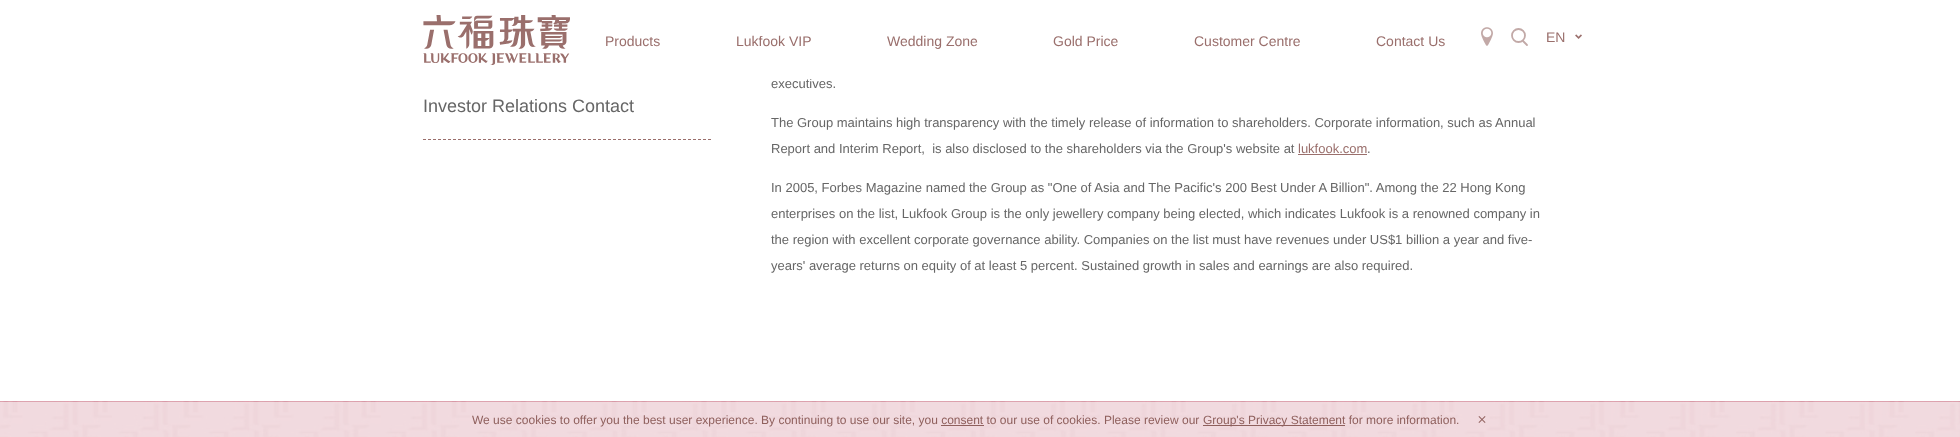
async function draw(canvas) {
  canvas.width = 1960
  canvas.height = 437
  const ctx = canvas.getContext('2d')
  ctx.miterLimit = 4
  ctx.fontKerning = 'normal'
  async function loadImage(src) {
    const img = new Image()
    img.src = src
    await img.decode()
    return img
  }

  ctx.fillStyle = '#fff'
  ctx.fillRect(0, 0, 1960, 437)
  ctx.font = '13px Liberation Sans'
  ctx.fillStyle = '#666'
  ctx.fillText('executives.', 771, 88)
  ctx.fillStyle = '#fff'
  ctx.fillRect(810, 78, 2, 1)
  ctx.drawImage(await loadImage('image0.png'), 423, 15, 147, 50)
  ctx.font = '14px Liberation Sans'
  ctx.fillStyle = '#9a6f6c'
  ctx.fillText('Products', 605, 46)
  ctx.fillText('Lukfook VIP', 736, 46)
  ctx.fillText('Wedding Zone', 887, 46)
  ctx.fillText('Gold Price', 1053, 46)
  ctx.fillText('Customer Centre', 1194, 46)
  ctx.fillText('Contact Us', 1376, 46)
  ctx.drawImage(await loadImage('image1.png'), 1481, 27, 12, 19)
  ctx.beginPath()
  ctx.arc(1518.5, 35.5, 6.5, 0, 2 * Math.PI)
  ctx.strokeStyle = '#c2a9a7'
  ctx.lineWidth = 1.8
  ctx.stroke()
  ctx.beginPath()
  ctx.moveTo(1523, 41)
  ctx.lineTo(1527, 45)
  ctx.lineCap = 'round'
  ctx.stroke()
  ctx.drawImage(await loadImage('image2.png'), 1575, 34, 7, 5)
  ctx.fillText('EN', 1546, 42)
  ctx.beginPath()
  ctx.moveTo(423, 139.5)
  ctx.lineTo(711, 139.5)
  ctx.strokeStyle = '#9a6f6c'
  ctx.lineWidth = 1
  ctx.lineCap = 'butt'
  ctx.setLineDash([3, 2])
  ctx.stroke()
  ctx.font = '18px Liberation Sans'
  ctx.fillStyle = '#666'
  ctx.fillText('Investor Relations Contact', 423, 112)
  ctx.font = '13px Liberation Sans'
  ctx.fillText('The Group maintains high transparency with the timely release of information to shareholders. Corporate information, such as Annual', 771, 127)
  ctx.fillText('Report and Interim Report,  is also disclosed to the shareholders via the Group\'s website at', 771, 153)
  ctx.fillStyle = '#9a6f6c'
  ctx.fillText('lukfook.com', 1298, 153)
  ctx.fillRect(1298, 154, 69, 1)
  ctx.fillStyle = '#666'
  ctx.fillText('.', 1367, 153)
  ctx.fillText('In 2005, Forbes Magazine named the Group as "One of Asia and The Pacific\'s 200 Best Under A Billion". Among the 22 Hong Kong', 771, 192)
  ctx.fillText('enterprises on the list, Lukfook Group is the only jewellery company being elected, which indicates Lukfook is a renowned company in', 771, 218)
  ctx.fillText('the region with excellent corporate governance ability. Companies on the list must have revenues under US$1 billion a year and five-', 771, 244)
  ctx.fillText('years\' average returns on equity of at least 5 percent. Sustained growth in sales and earnings are also required.', 771, 270)
  ctx.drawImage(await loadImage('image3.png'), 0, 401, 1960, 36)
  ctx.font = '12px Liberation Sans'
  ctx.fillStyle = '#8f605d'
  ctx.fillText('We use cookies to offer you the best user experience. By continuing to use our site, you consent to our use of cookies. Please review our', 472, 424)
  ctx.fillRect(1203, 425, 142, 1)
  ctx.fillText('Group\'s Privacy Statement for more information.', 1203, 424)
  ctx.drawImage(await loadImage('image4.png'), 1478, 416, 8, 7)
  ctx.fillRect(941, 425, 43, 1)
}

draw(document.querySelector('canvas'))
